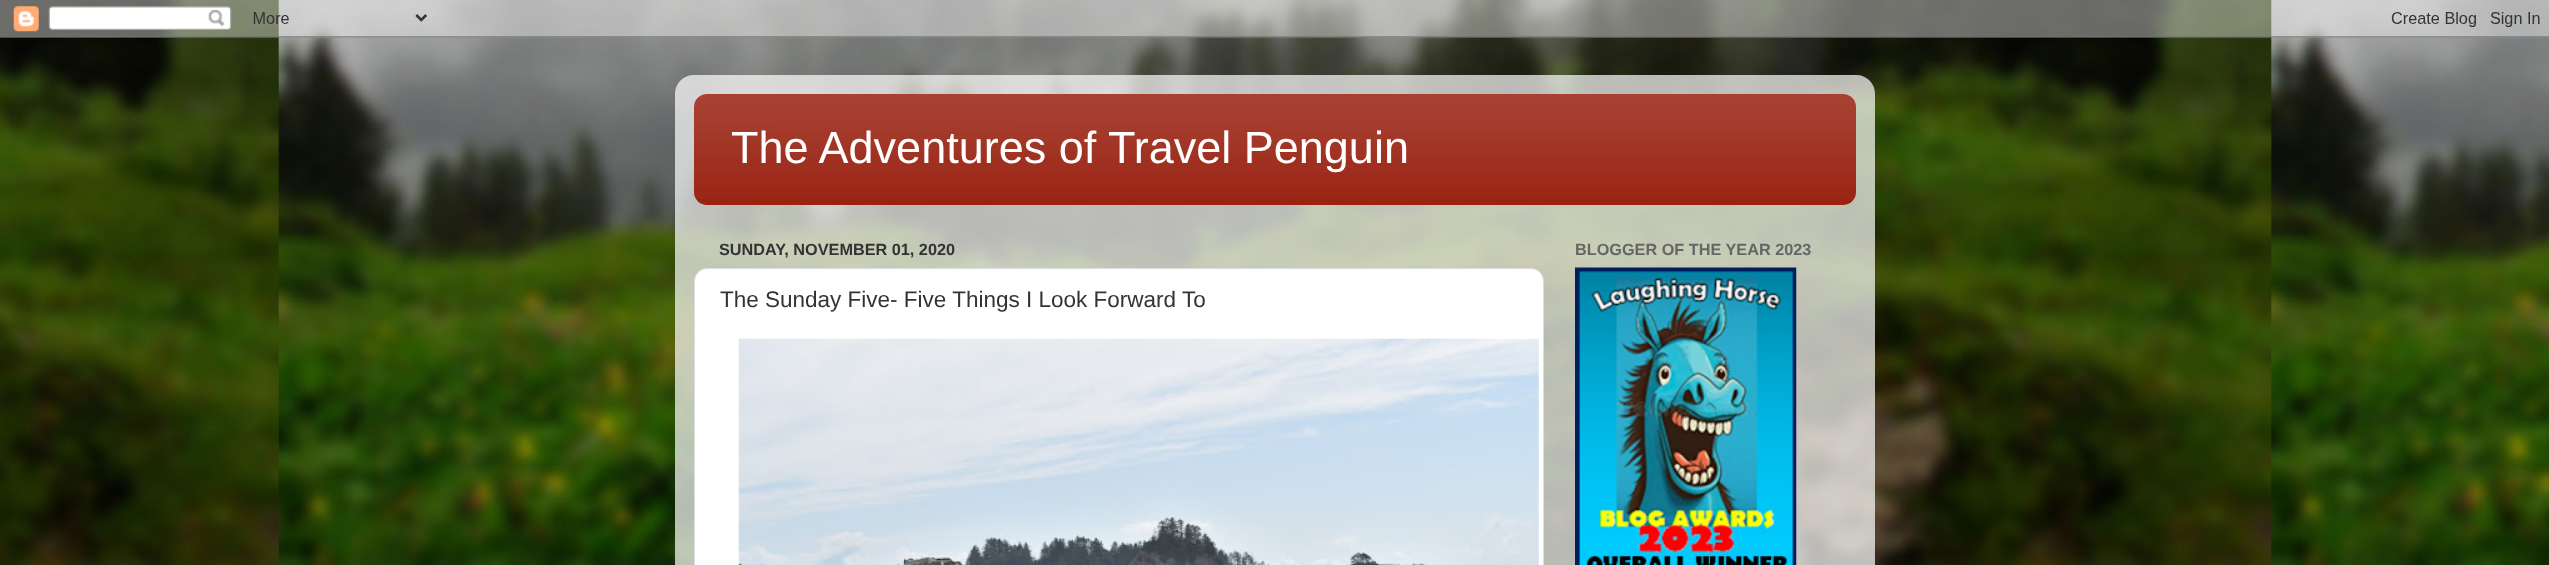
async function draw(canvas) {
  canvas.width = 2549
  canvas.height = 565
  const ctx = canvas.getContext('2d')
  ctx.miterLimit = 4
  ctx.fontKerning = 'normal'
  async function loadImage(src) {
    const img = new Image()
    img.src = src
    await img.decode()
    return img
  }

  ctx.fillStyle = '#fff'
  ctx.fillRect(0, 0, 2549, 565)
  ctx.drawImage(await loadImage('image0.png'), 0, 0, 2549, 565)
  ctx.drawImage(await loadImage('image1.png'), 0, 0, 2549, 38)
  ctx.drawImage(await loadImage('image2.png'), 675, 75, 1200, 490)
  ctx.fillStyle = '#921'
  ctx.beginPath()
  ctx.roundRect(694, 94, 1162, 111, 13)
  ctx.fill()
  ctx.drawImage(await loadImage('image3.png'), 694, 94, 1162, 105)
  ctx.font = '45px Liberation Sans'
  ctx.fillStyle = '#fff'
  ctx.fillText('The Adventures of Travel Penguin', 731, 163)
  ctx.font = 'bold 16.25px Liberation Sans'
  ctx.fillStyle = '#333'
  ctx.fillText('SUNDAY, NOVEMBER 01, 2020', 719, 255)
  ctx.fillStyle = '#fff'
  ctx.beginPath()
  ctx.roundRect(694.5, 268.5, 849, 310, 12.5)
  ctx.fill()
  ctx.strokeStyle = '#ddd'
  ctx.stroke()
  ctx.font = '22.5px Liberation Sans'
  ctx.fillStyle = '#333'
  ctx.fillText('The Sunday Five- Five Things I Look Forward To', 720, 307)
  ctx.drawImage(await loadImage('image4.png'), 738, 338, 801, 227)
  ctx.font = 'bold 16.25px Liberation Sans'
  ctx.fillStyle = '#666'
  ctx.fillText('BLOGGER OF THE YEAR 2023', 1575, 255)
  ctx.drawImage(await loadImage('image5.png'), 1575, 267, 222, 298)
}

draw(document.querySelector('canvas'))
